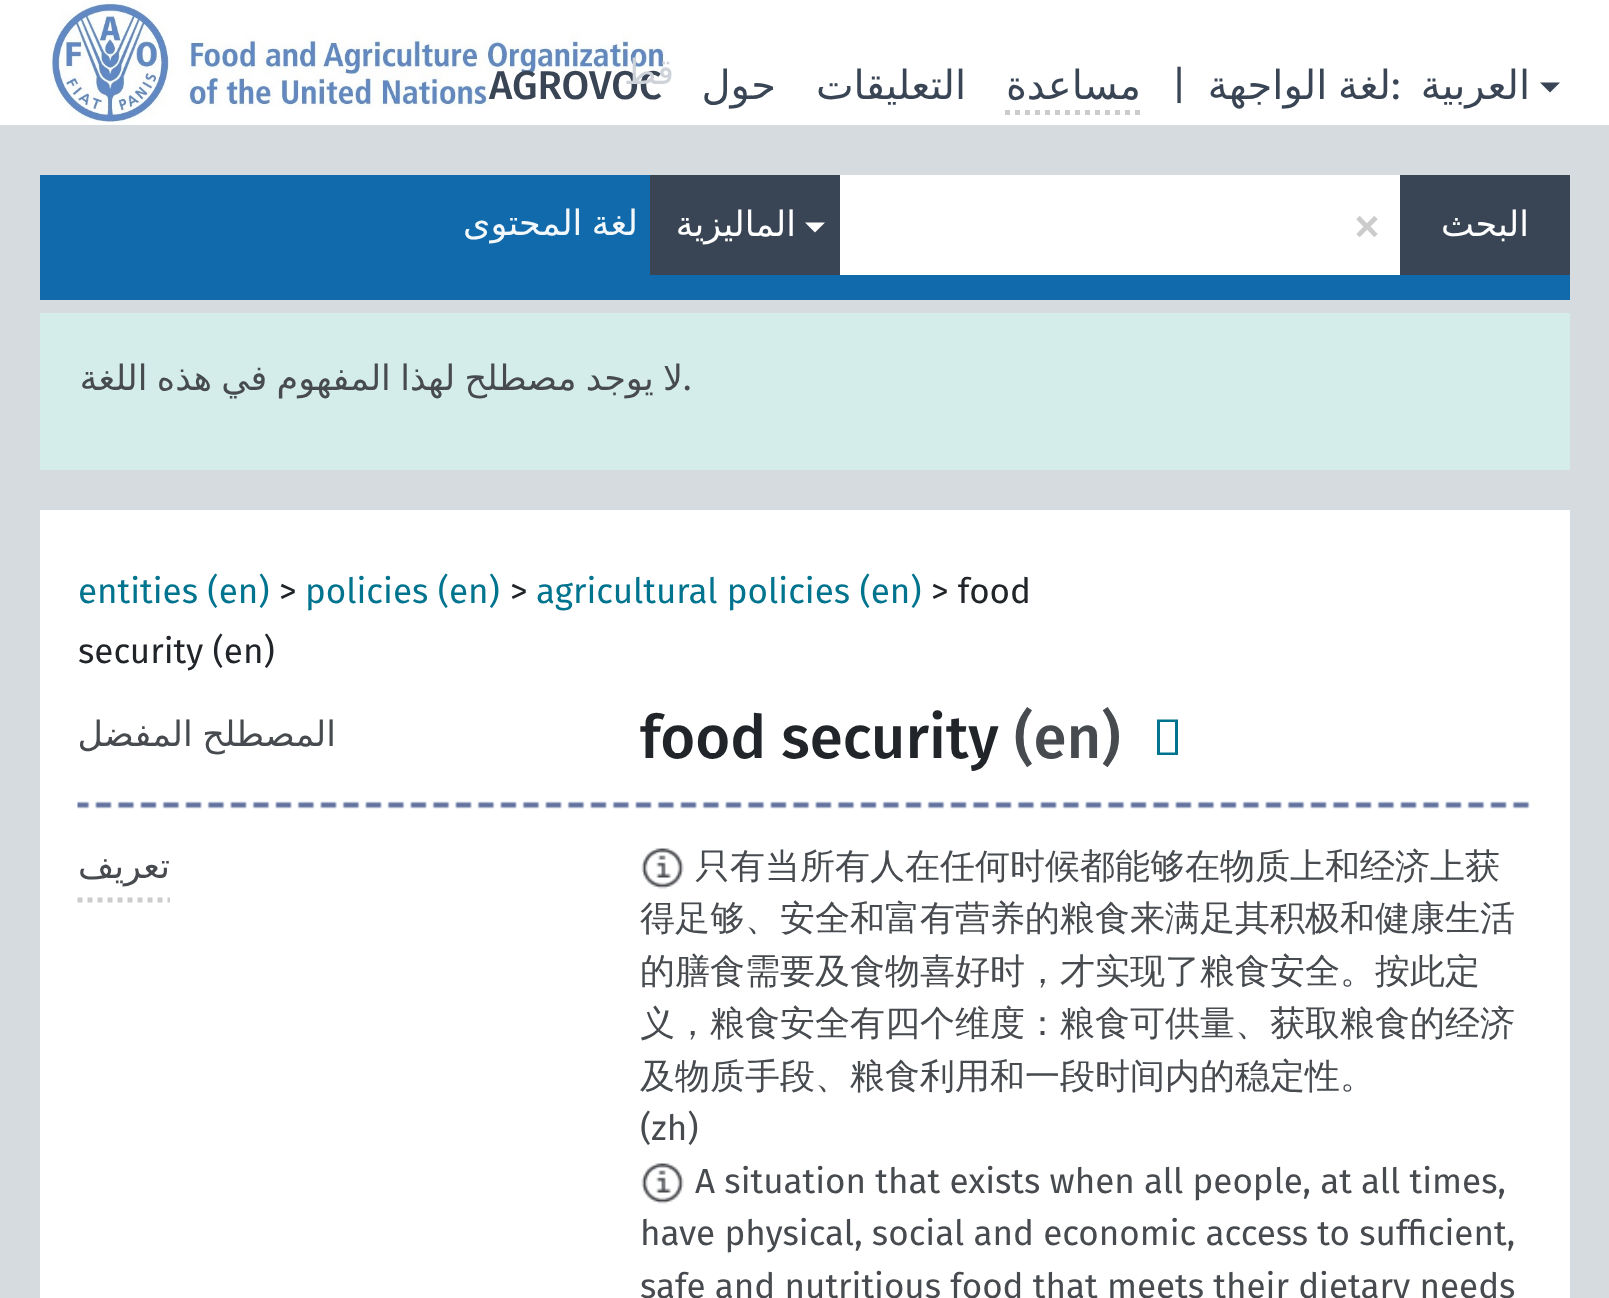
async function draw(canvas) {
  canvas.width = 1609
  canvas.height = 1298
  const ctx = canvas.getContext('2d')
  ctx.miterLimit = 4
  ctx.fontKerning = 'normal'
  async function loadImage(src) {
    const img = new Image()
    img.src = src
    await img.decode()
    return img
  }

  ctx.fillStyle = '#d5dbde'
  ctx.fillRect(0, 0, 1609, 1298)
  ctx.fillStyle = '#fff'
  ctx.fillRect(0, 0, 1609, 125)
  ctx.drawImage(await loadImage('image0.png'), 51, 0, 614, 125)
  ctx.font = '500 40px Fira Sans'
  ctx.fillStyle = '#394554'
  ctx.fillText('AGROVOC', 489, 99)
  ctx.direction = 'rtl'
  ctx.font = '35px DejaVu Sans'
  ctx.fillStyle = '#ced3d9'
  ctx.fillText('قط', 674, 84)
  ctx.font = '40px DejaVu Sans'
  ctx.fillStyle = '#394554'
  ctx.fillText('مساعدة', 1141, 99)
  ctx.beginPath()
  ctx.moveTo(1005, 112.5)
  ctx.lineTo(1140, 112.5)
  ctx.strokeStyle = '#ccc'
  ctx.lineWidth = 5
  ctx.setLineDash([5, 5])
  ctx.stroke()
  ctx.fillText('حول', 776, 99)
  ctx.fillText('التعليقات', 966, 99)
  ctx.direction = 'ltr'
  ctx.font = '40px Fira Sans'
  ctx.fillText('|', 1171, 99)
  ctx.wordSpacing = '-2px'
  ctx.direction = 'rtl'
  ctx.font = '40px DejaVu Sans'
  ctx.fillText('لغة الواجهة', 1391, 99)
  ctx.wordSpacing = '0px'
  ctx.direction = 'ltr'
  ctx.font = '40px Fira Sans'
  ctx.fillText(':', 1391, 99)
  ctx.direction = 'rtl'
  ctx.font = '40px DejaVu Sans'
  ctx.fillText('العربية', 1530, 99)
  ctx.beginPath()
  ctx.moveTo(1540, 82.5)
  ctx.lineTo(1560, 82.5)
  ctx.lineTo(1550, 92.5)
  ctx.closePath()
  ctx.fill()
  ctx.fillStyle = '#116aab'
  ctx.fillRect(40, 175, 1530, 125)
  ctx.wordSpacing = '-1.75px'
  ctx.font = '35px DejaVu Sans'
  ctx.fillStyle = '#f3f8fb'
  ctx.fillText('لغة المحتوى', 638, 235)
  ctx.fillStyle = '#394554'
  ctx.fillRect(650, 175, 190, 100)
  ctx.wordSpacing = '0px'
  ctx.fillStyle = '#fff'
  ctx.fillText('الماليزية', 796, 236)
  ctx.beginPath()
  ctx.moveTo(805, 222.5)
  ctx.lineTo(825, 222.5)
  ctx.lineTo(815, 232.5)
  ctx.closePath()
  ctx.fill()
  ctx.fillRect(840, 175, 560, 100)
  ctx.direction = 'ltr'
  ctx.font = '60px Fira Sans'
  ctx.fillStyle = '#ccc'
  ctx.fillText('×', 1352, 245)
  ctx.fillStyle = '#394554'
  ctx.fillRect(1400, 175, 170, 100)
  ctx.direction = 'rtl'
  ctx.font = '35px DejaVu Sans'
  ctx.fillStyle = '#fff'
  ctx.fillText('البحث', 1529, 236)
  ctx.fillStyle = '#d4edeb'
  ctx.fillRect(40, 313, 1530, 157)
  ctx.wordSpacing = '-1.75px'
  ctx.fillStyle = '#474b4f'
  ctx.fillText('لا يوجد مصطلح لهذا المفهوم في هذه اللغة', 683, 390)
  ctx.wordSpacing = '0px'
  ctx.direction = 'ltr'
  ctx.font = '35px Fira Sans'
  ctx.fillText('.', 683, 390)
  ctx.fillStyle = '#fff'
  ctx.fillRect(40, 510, 1530, 788)
  ctx.fillStyle = '#00748f'
  ctx.fillText('entities (en)', 78, 603)
  ctx.fillStyle = '#212529'
  ctx.fillText('>', 279, 603)
  ctx.fillStyle = '#00748f'
  ctx.fillText('policies (en)', 305, 603)
  ctx.fillStyle = '#212529'
  ctx.fillText('>', 510, 603)
  ctx.fillStyle = '#00748f'
  ctx.fillText('agricultural policies (en)', 536, 603)
  ctx.fillStyle = '#212529'
  ctx.fillText('> food', 931, 603)
  ctx.fillText('security (en)', 78, 663)
  ctx.wordSpacing = '-1.75px'
  ctx.direction = 'rtl'
  ctx.font = '35px DejaVu Sans'
  ctx.fillStyle = '#474b4f'
  ctx.fillText('المصطلح المفضل', 336, 746)
  ctx.wordSpacing = '0px'
  ctx.direction = 'ltr'
  ctx.font = '500 60px Fira Sans'
  ctx.fillStyle = '#212529'
  ctx.fillText('food security', 640, 758)
  ctx.fillStyle = '#474b4f'
  ctx.fillText('(en)', 1014, 758)
  ctx.fillStyle = '#00748f'
  ctx.beginPath()
  ctx.moveTo(1157, 755)
  ctx.lineTo(1157, 719.5)
  ctx.lineTo(1178, 719.5)
  ctx.lineTo(1178, 755)
  ctx.closePath()
  ctx.moveTo(1160, 752.5)
  ctx.lineTo(1175, 752.5)
  ctx.lineTo(1175, 722)
  ctx.lineTo(1160, 722)
  ctx.closePath()
  ctx.fill()
  ctx.drawImage(await loadImage('image1.png'), 77, 801, 1453, 8)
  ctx.beginPath()
  ctx.moveTo(77.5, 900)
  ctx.lineTo(170, 900)
  ctx.stroke()
  ctx.direction = 'rtl'
  ctx.font = '35px DejaVu Sans'
  ctx.fillStyle = '#474b4f'
  ctx.fillText('تعريف', 170, 878)
  ctx.drawImage(await loadImage('image2.png'), 641, 848, 43, 41)
  ctx.direction = 'ltr'
  ctx.font = '500 35px WenQuanYi Zen Hei'
  ctx.fillText('只有当所有人在任何时候都能够在物质上和经济上获', 695, 878)
  ctx.fillText('得足够、安全和富有营养的粮食来满足其积极和健康生活', 640, 930)
  ctx.fillText('的膳食需要及食物喜好时，才实现了粮食安全。按此定', 640, 983)
  ctx.fillText('义，粮食安全有四个维度：粮食可供量、获取粮食的经济', 640, 1035)
  ctx.fillText('及物质手段、粮食利用和一段时间内的稳定性。', 640, 1088)
  ctx.font = '35px Fira Sans'
  ctx.fillText('(zh)', 640, 1140)
  ctx.drawImage(await loadImage('image2.png'), 641, 1163, 43, 41)
  ctx.fillText('A situation that exists when all people, at all times,', 695, 1193)
  ctx.fillText('have physical, social and economic access to sufficient,', 640, 1245)
  ctx.fillText('safe and nutritious food that meets their dietary needs', 640, 1298)
}

draw(document.querySelector('canvas'))
